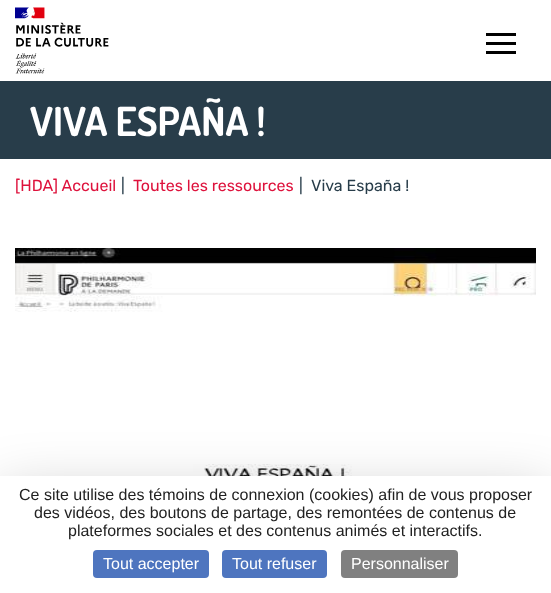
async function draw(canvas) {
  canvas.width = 551
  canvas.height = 593
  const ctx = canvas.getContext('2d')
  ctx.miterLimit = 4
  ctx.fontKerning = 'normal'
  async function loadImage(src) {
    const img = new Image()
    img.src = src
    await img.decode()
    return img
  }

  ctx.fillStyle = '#fff'
  ctx.fillRect(0, 0, 551, 593)
  ctx.drawImage(await loadImage('image0.png'), 15, 7, 94, 67)
  ctx.drawImage(await loadImage('image1.png'), 486, 33, 30, 21)
  ctx.fillStyle = '#283d4a'
  ctx.fillRect(0, 81, 551, 78)
  ctx.font = 'bold 40px Dosis'
  ctx.fillStyle = '#fff'
  ctx.fillText('VIVA ESPAÑA !', 30, 136)
  ctx.font = '16px Rubik'
  ctx.fillStyle = '#de123c'
  ctx.fillText('[HDA] Accueil', 15, 191)
  ctx.fillStyle = '#283d4a'
  ctx.fillText('|', 121, 191)
  ctx.fillStyle = '#de123c'
  ctx.fillText('Toutes les ressources', 133, 191)
  ctx.fillStyle = '#283d4a'
  ctx.fillText('|', 299, 191)
  ctx.fillText('Viva España !', 311, 191)
  ctx.drawImage(await loadImage('image2.png'), 15, 248, 521, 228)
  ctx.fillStyle = '#00000040'
  ctx.filter = 'blur(30px)'
  ctx.beginPath()
  ctx.rect(0, 496, 551, 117)
  ctx.fill()
  ctx.filter = 'none'
  ctx.fillStyle = '#fff'
  ctx.fillRect(0, 476, 551, 117)
  ctx.font = '16px Liberation Sans'
  ctx.fillStyle = '#222'
  ctx.fillText('Ce site utilise des témoins de connexion (cookies) afin de vous proposer', 19, 500)
  ctx.fillText('des vidéos, des boutons de partage, des remontées de contenus de', 34, 518)
  ctx.fillText('plateformes sociales et des contenus animés et interactifs.', 68, 536)
  ctx.fillStyle = '#4e75bf'
  ctx.beginPath()
  ctx.roundRect(93, 550, 116, 28, 4)
  ctx.fill()
  ctx.fillStyle = '#fff'
  ctx.fillText('Tout accepter', 103, 569)
  ctx.fillStyle = '#4e75bf'
  ctx.beginPath()
  ctx.roundRect(222, 550, 105, 28, 4)
  ctx.fill()
  ctx.fillStyle = '#fff'
  ctx.fillText('Tout refuser', 232, 569)
  ctx.fillStyle = '#808080'
  ctx.beginPath()
  ctx.roundRect(341, 550, 117, 28, 4)
  ctx.fill()
  ctx.fillStyle = '#fff'
  ctx.fillText('Personnaliser', 351, 569)
}

draw(document.querySelector('canvas'))
